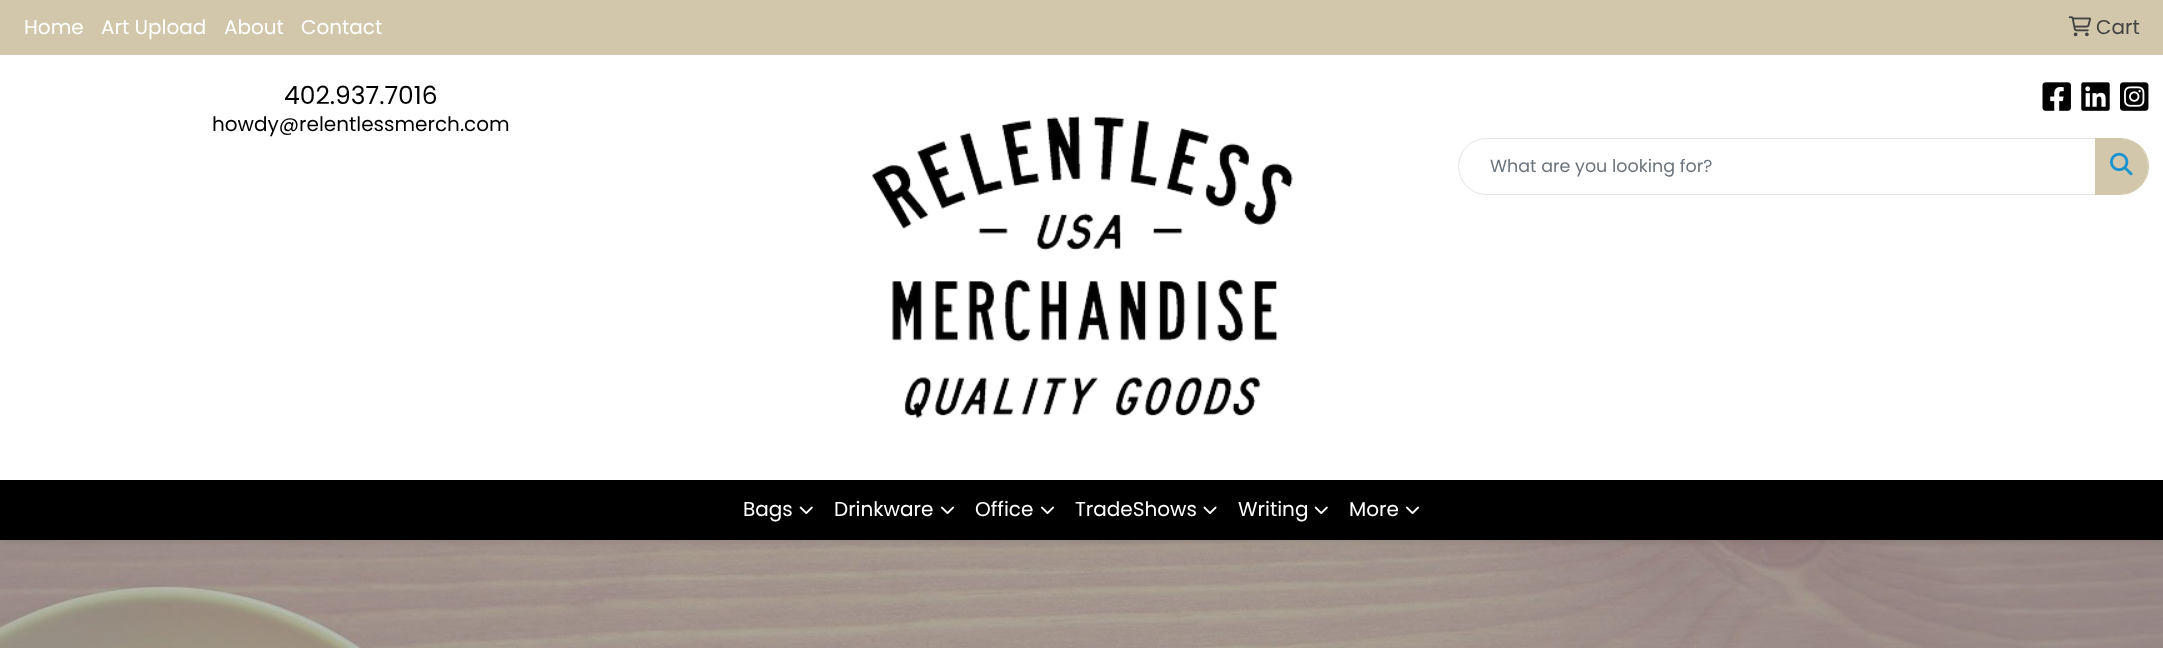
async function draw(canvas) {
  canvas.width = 2163
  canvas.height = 648
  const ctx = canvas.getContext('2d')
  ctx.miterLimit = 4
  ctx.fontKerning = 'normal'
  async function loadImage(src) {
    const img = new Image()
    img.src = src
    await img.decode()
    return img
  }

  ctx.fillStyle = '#fff'
  ctx.fillRect(0, 0, 2163, 648)
  ctx.fillStyle = '#d2c7aa'
  ctx.fillRect(0, 0, 2163, 55)
  ctx.font = '20px Poppins'
  ctx.fillStyle = '#fff'
  ctx.fillText('Home', 24, 34)
  ctx.fillText('Art Upload', 101, 34)
  ctx.fillText('About', 224, 34)
  ctx.fillText('Contact', 301, 34)
  ctx.drawImage(await loadImage('image0.png'), 2068, 16, 23, 21)
  ctx.fillStyle = '#444'
  ctx.fillText('Cart', 2096, 34)
  ctx.font = '25px Poppins'
  ctx.fillStyle = '#000'
  ctx.fillText('402.937.7016', 284, 104)
  ctx.font = '20px Poppins'
  ctx.fillText('howdy@relentlessmerch.com', 212, 131)
  ctx.drawImage(await loadImage('image1.png'), 871, 116, 422, 303)
  ctx.drawImage(await loadImage('image2.png'), 2042, 82, 29, 29)
  ctx.drawImage(await loadImage('image3.png'), 2081, 82, 29, 29)
  ctx.drawImage(await loadImage('image4.png'), 2120, 82, 29, 29)
  ctx.beginPath()
  ctx.roundRect(1458.5, 138.5, 637, 56, [28, 0, 0, 28])
  ctx.strokeStyle = '#e4e4e4'
  ctx.stroke()
  ctx.font = '17.5px Poppins'
  ctx.fillStyle = '#6c757d'
  ctx.fillText('What are you looking for?', 1490, 172)
  ctx.fillStyle = '#d2c7aa'
  ctx.beginPath()
  ctx.roundRect(2095, 139, 53, 55, [0, 27.5, 27.5, 0])
  ctx.fill()
  ctx.beginPath()
  ctx.moveTo(2095, 138)
  ctx.lineTo(2120, 138)
  ctx.bezierCurveTo(2136, 138, 2149, 150, 2149, 166)
  ctx.bezierCurveTo(2149, 182, 2136, 195, 2120, 195)
  ctx.lineTo(2095, 195)
  ctx.closePath()
  ctx.moveTo(2095, 139)
  ctx.lineTo(2120, 139)
  ctx.bezierCurveTo(2135, 139, 2148, 151, 2148, 166)
  ctx.bezierCurveTo(2148, 181, 2135, 194, 2120, 194)
  ctx.lineTo(2095, 194)
  ctx.closePath()
  ctx.fill('evenodd')
  ctx.drawImage(await loadImage('image5.png'), 2110, 152, 23, 24)
  ctx.drawImage(await loadImage('image9.png'), 0, 540, 2163, 108)
  ctx.fillStyle = '#00000012'
  ctx.filter = 'blur(2.5px)'
  ctx.beginPath()
  ctx.rect(0, 483, 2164, 60)
  ctx.fill()
  ctx.filter = 'none'
  ctx.fillStyle = '#000'
  ctx.fillRect(0, 480, 2163, 60)
  ctx.font = '20px Poppins'
  ctx.fillStyle = '#fff'
  ctx.fillText('Bags', 743, 516)
  ctx.drawImage(await loadImage('image6.png'), 799, 506, 14, 8)
  ctx.fillText('Drinkware', 834, 516)
  ctx.drawImage(await loadImage('image7.png'), 941, 506, 13, 8)
  ctx.fillText('Office', 975, 516)
  ctx.drawImage(await loadImage('image7.png'), 1041, 506, 13, 8)
  ctx.fillText('TradeShows', 1075, 516)
  ctx.drawImage(await loadImage('image8.png'), 1203, 506, 14, 8)
  ctx.fillText('Writing', 1238, 516)
  ctx.drawImage(await loadImage('image6.png'), 1314, 506, 14, 8)
  ctx.fillText('More', 1349, 516)
  ctx.drawImage(await loadImage('image7.png'), 1406, 506, 13, 8)
}

draw(document.querySelector('canvas'))
